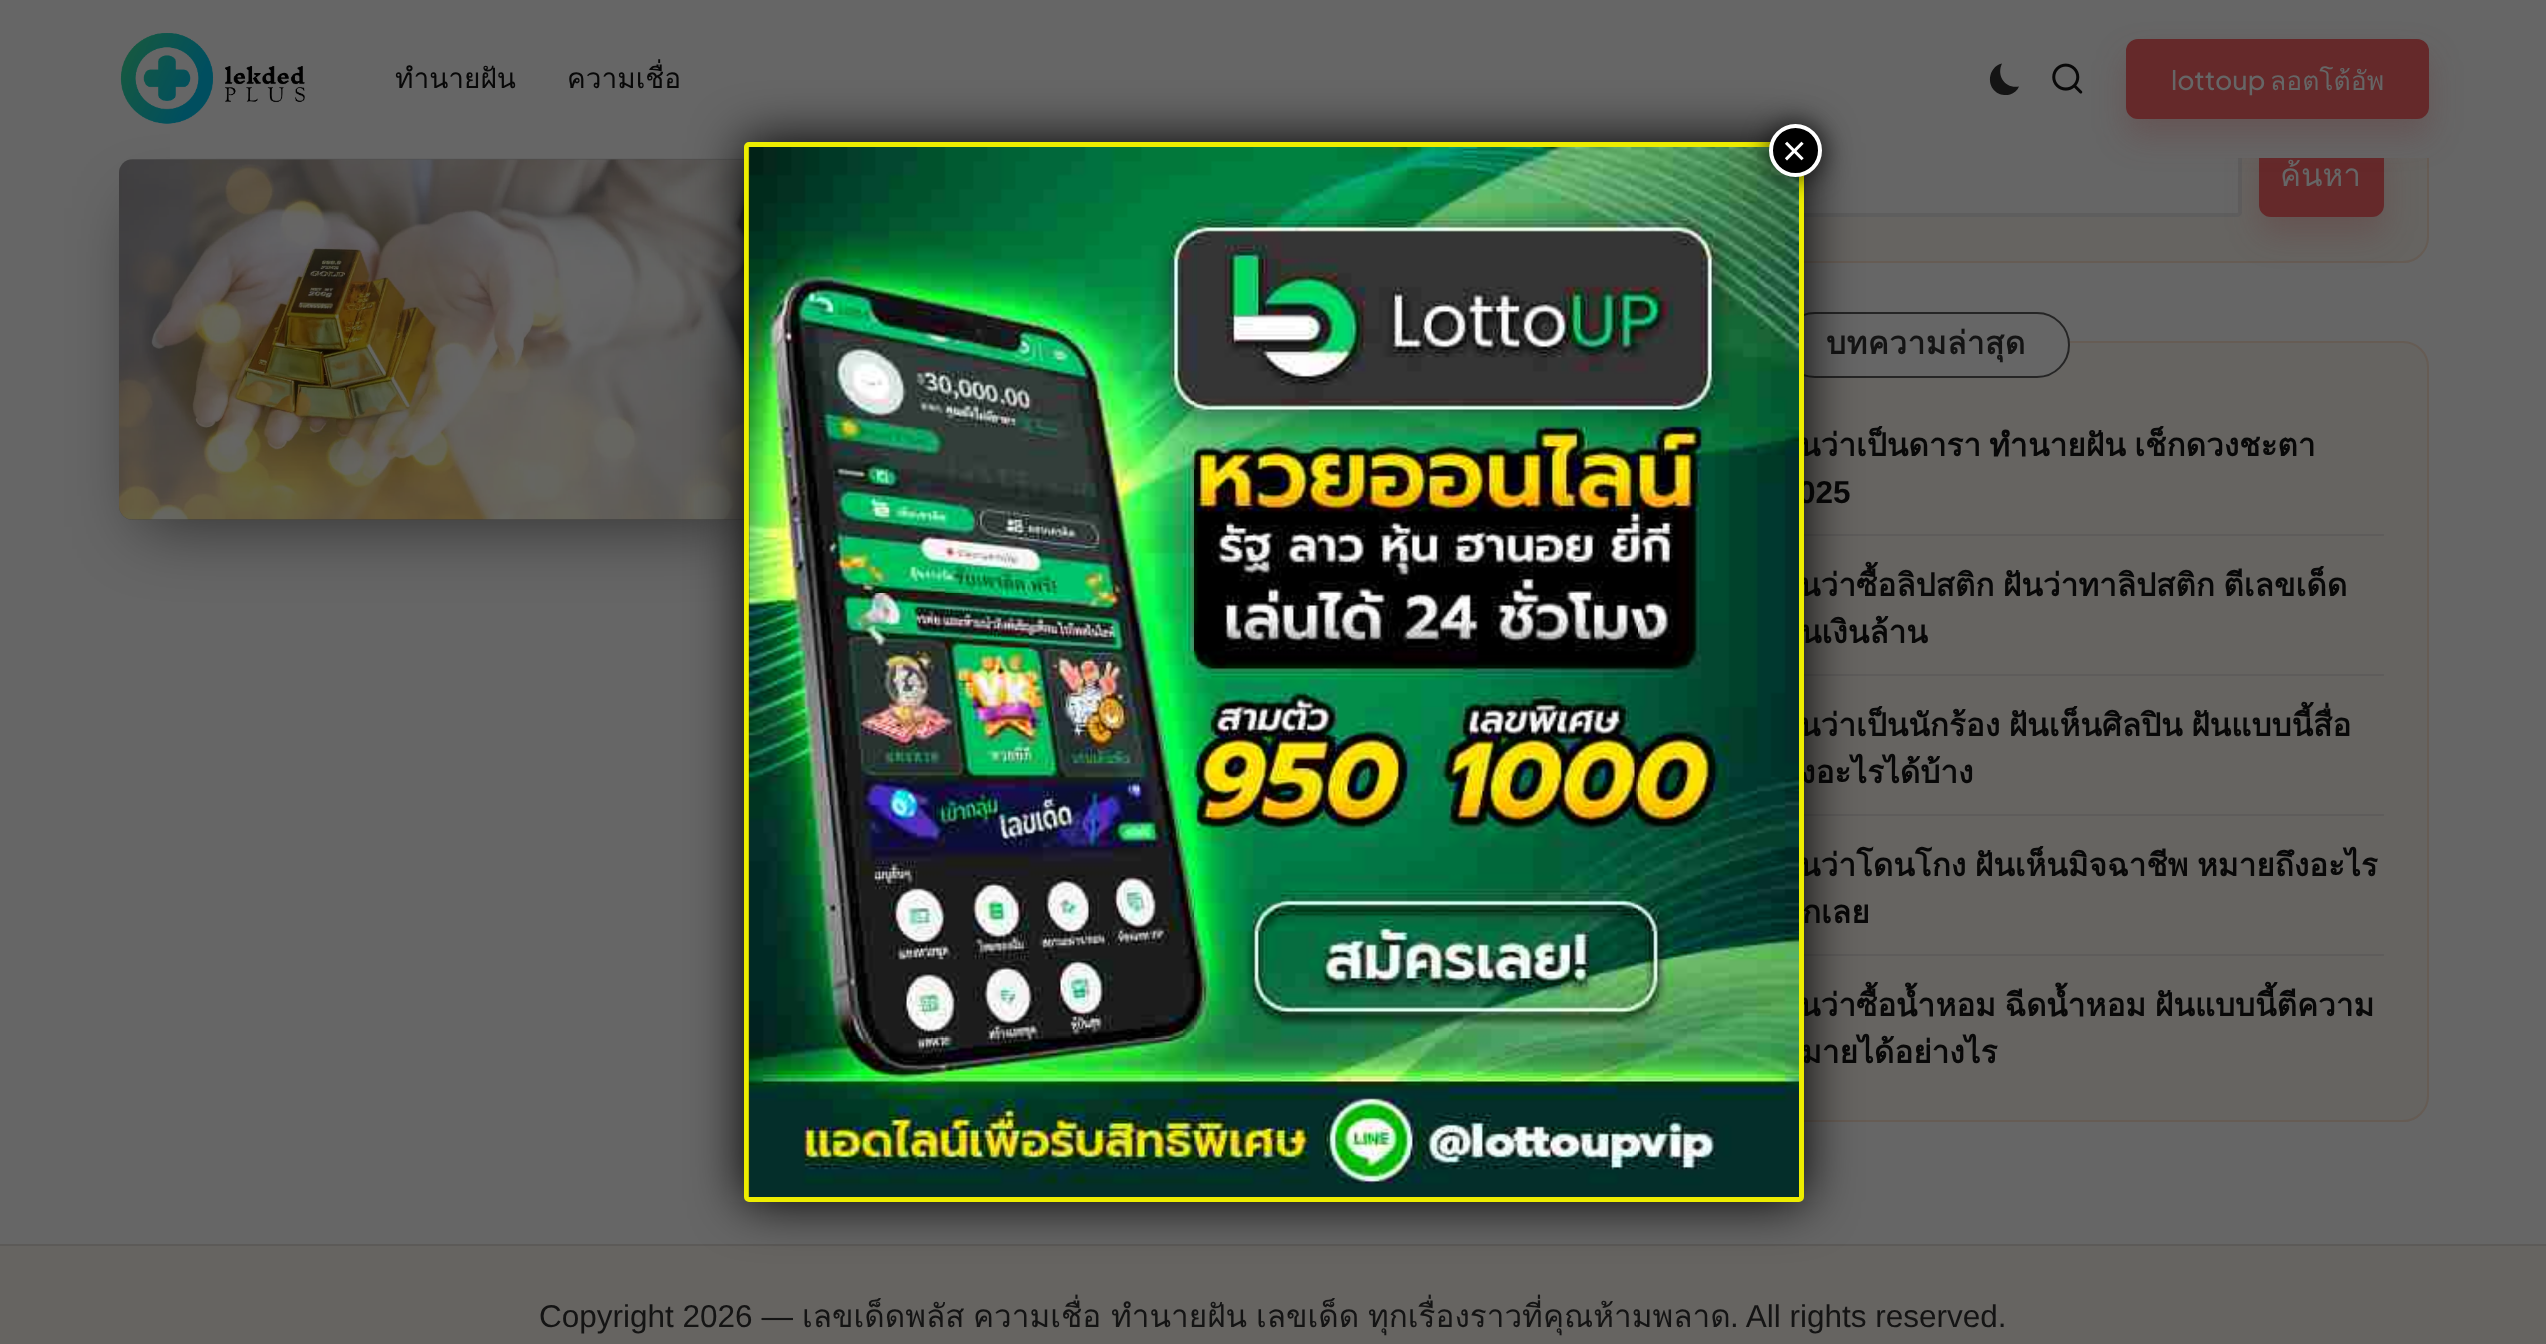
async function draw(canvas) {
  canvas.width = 2546
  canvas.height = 1344
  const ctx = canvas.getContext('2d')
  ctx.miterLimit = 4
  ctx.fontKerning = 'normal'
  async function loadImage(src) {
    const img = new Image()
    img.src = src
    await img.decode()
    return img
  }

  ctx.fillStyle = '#666'
  ctx.fillRect(0, 0, 2546, 1344)
  ctx.fillStyle = '#00000080'
  ctx.filter = 'blur(33px)'
  ctx.beginPath()
  ctx.rect(140, 208, 600, 319)
  ctx.fill()
  ctx.filter = 'none'
  ctx.fillStyle = '#666461'
  ctx.beginPath()
  ctx.roundRect(1737, 52, 691, 210, 25)
  ctx.fill()
  ctx.strokeStyle = '#665c54'
  ctx.lineWidth = 2
  ctx.stroke()
  ctx.fillStyle = '#666'
  ctx.beginPath()
  ctx.roundRect(1782, 135, 460, 82, 5)
  ctx.fill()
  ctx.beginPath()
  ctx.roundRect(1784, 137, 456, 78, 3)
  ctx.strokeStyle = '#4c4c4c4d'
  ctx.lineWidth = 4
  ctx.stroke()
  ctx.fillStyle = '#65292a45'
  ctx.filter = 'blur(16px)'
  ctx.beginPath()
  ctx.roundRect(2259, 152, 125, 83, 12)
  ctx.fill()
  ctx.filter = 'none'
  ctx.fillStyle = '#65292a'
  ctx.beginPath()
  ctx.roundRect(2260, 136, 123, 80, 11)
  ctx.fill()
  ctx.strokeStyle = '#65292a'
  ctx.lineWidth = 2
  ctx.stroke()
  ctx.fillStyle = '#666'
  ctx.fillRect(170, 51, 2259, 107)
  ctx.drawImage(await loadImage('image0.png'), 120, 33, 185, 91)
  ctx.font = '28px Loma'
  ctx.fillStyle = '#080808'
  ctx.fillText('ทำนายฝัน', 395, 88)
  ctx.fillText('ความเชื่อ', 567, 88)
  ctx.fillStyle = '#141414'
  ctx.beginPath()
  ctx.moveTo(2019, 86.5)
  ctx.bezierCurveTo(2005.5, 89, 1996, 76, 2002, 63.5)
  ctx.bezierCurveTo(1987.5, 67, 1985.5, 88, 1999.5, 94)
  ctx.bezierCurveTo(2002.5, 95, 2006.5, 95.5, 2010, 94.5)
  ctx.bezierCurveTo(2014, 93, 2017.5, 90.5, 2019, 86.5)
  ctx.closePath()
  ctx.fill()
  ctx.drawImage(await loadImage('image1.png'), 2052, 63, 31, 31)
  ctx.fillStyle = '#65292a45'
  ctx.filter = 'blur(16px)'
  ctx.beginPath()
  ctx.roundRect(2126, 56, 303, 81, 12)
  ctx.fill()
  ctx.filter = 'none'
  ctx.fillStyle = '#65292a'
  ctx.beginPath()
  ctx.roundRect(2127, 40, 301, 78, 11)
  ctx.fill()
  ctx.stroke()
  ctx.font = '500 26.5px Plus Jakarta Sans'
  ctx.fillStyle = '#666'
  ctx.fillText('lottoup', 2171, 90)
  ctx.font = '26.5px Loma'
  ctx.fillText('ลอตโต้อัพ', 2270, 90)
  ctx.fillStyle = '#0000002e'
  ctx.beginPath()
  ctx.roundRect(119, 159, 642, 361, 14)
  ctx.fill()
  ctx.drawImage(await loadImage('image2.png'), 119, 159, 631, 361)
  ctx.font = '31.5px Loma'
  ctx.fillStyle = '#666'
  ctx.fillText('ค้นหา', 2280, 186)
  ctx.fillStyle = '#666461'
  ctx.beginPath()
  ctx.roundRect(1737, 342, 691, 779, 25)
  ctx.fill()
  ctx.strokeStyle = '#665c54'
  ctx.stroke()
  ctx.fillStyle = '#666'
  ctx.beginPath()
  ctx.roundRect(1782, 312, 288, 66, 33)
  ctx.fill()
  ctx.beginPath()
  ctx.roundRect(1783, 313, 286, 64, 32)
  ctx.strokeStyle = '#101010bf'
  ctx.stroke()
  ctx.letterSpacing = '0.5px'
  ctx.font = 'bold 31.5px Loma'
  ctx.fillStyle = '#141414'
  ctx.fillText('บทความล่าสุด', 1826, 354)
  ctx.letterSpacing = '0px'
  ctx.wordSpacing = '-2px'
  ctx.fillStyle = '#080808'
  ctx.fillText('นว่าเป็นดารา ทำนายฝัน เช็กดวงชะตา', 1799, 456)
  ctx.wordSpacing = '0px'
  ctx.font = 'bold 31.5px Liberation Sans'
  ctx.fillText('025', 1798, 503)
  ctx.fillStyle = '#5e5c5b'
  ctx.fillRect(1804, 534, 580, 2)
  ctx.wordSpacing = '-2px'
  ctx.font = 'bold 31.5px Loma'
  ctx.fillStyle = '#080808'
  ctx.fillText('นว่าซื้อลิปสติก ฝันว่าทาลิปสติก ตีเลขเด็ด', 1799, 596)
  ctx.wordSpacing = '0px'
  ctx.fillText('นเงินล้าน', 1800, 643)
  ctx.fillStyle = '#5e5c5b'
  ctx.fillRect(1804, 674, 580, 2)
  ctx.wordSpacing = '-2px'
  ctx.fillStyle = '#080808'
  ctx.fillText('นว่าเป็นนักร้อง ฝันเห็นศิลปิน ฝันแบบนี้สื่อ', 1799, 736)
  ctx.wordSpacing = '0px'
  ctx.fillText('งอะไรได้บ้าง', 1800, 783)
  ctx.fillStyle = '#5e5c5b'
  ctx.fillRect(1804, 814, 580, 2)
  ctx.wordSpacing = '-2px'
  ctx.fillStyle = '#080808'
  ctx.fillText('นว่าโดนโกง ฝันเห็นมิจฉาชีพ หมายถึงอะไร', 1799, 876)
  ctx.wordSpacing = '0px'
  ctx.fillText('็กเลย', 1802, 923)
  ctx.fillStyle = '#5e5c5b'
  ctx.fillRect(1804, 954, 580, 2)
  ctx.wordSpacing = '-2px'
  ctx.fillStyle = '#080808'
  ctx.fillText('นว่าซื้อน้ำหอม ฉีดน้ำหอม ฝันแบบนี้ตีความ', 1799, 1016)
  ctx.wordSpacing = '0px'
  ctx.fillText('มายได้อย่างไร', 1801, 1063)
  ctx.fillStyle = '#666461'
  ctx.fillRect(0, 1246, 2546, 98)
  ctx.fillStyle = '#5c5a58'
  ctx.fillRect(0, 1244, 2546, 2)
  ctx.font = '31.5px Liberation Sans'
  ctx.fillStyle = '#141414'
  ctx.fillText('Copyright 2026 —', 539, 1327)
  ctx.font = '31.5px Loma'
  ctx.fillText('เลขเด็ดพลัส', 802, 1327)
  ctx.fillText('ความเชื่อ', 973, 1327)
  ctx.fillText('ทำนายฝัน', 1111, 1327)
  ctx.fillText('เลขเด็ด', 1256, 1327)
  ctx.fillText('ทุกเรื่องราวที่คุณห้ามพลาด', 1368, 1327)
  ctx.font = '31.5px Liberation Sans'
  ctx.fillText('. All rights reserved.', 1730, 1327)
  ctx.fillStyle = '#020202'
  ctx.filter = 'blur(26px)'
  ctx.beginPath()
  ctx.roundRect(744, 142, 1060, 1060, 5)
  ctx.fill()
  ctx.filter = 'none'
  ctx.beginPath()
  ctx.roundRect(746.5, 144.5, 1055, 1055, 2.5)
  ctx.strokeStyle = '#eded00'
  ctx.lineWidth = 5
  ctx.stroke()
  ctx.drawImage(await loadImage('image3.png'), 748, 147, 1051, 1050)
  ctx.fillStyle = '#020202bf'
  ctx.filter = 'blur(13px)'
  ctx.beginPath()
  ctx.roundRect(1768, 123, 56, 56, 28)
  ctx.fill()
  ctx.filter = 'none'
  ctx.fillStyle = '#000'
  ctx.beginPath()
  ctx.arc(1795.5, 150.5, 24.5, 0, 2 * Math.PI)
  ctx.fill()
  ctx.strokeStyle = '#fff'
  ctx.lineWidth = 4
  ctx.stroke()
  ctx.font = '42px Liberation Sans'
  ctx.fillStyle = '#fff'
  ctx.fillText('×', 1782, 165)
}

draw(document.querySelector('canvas'))
